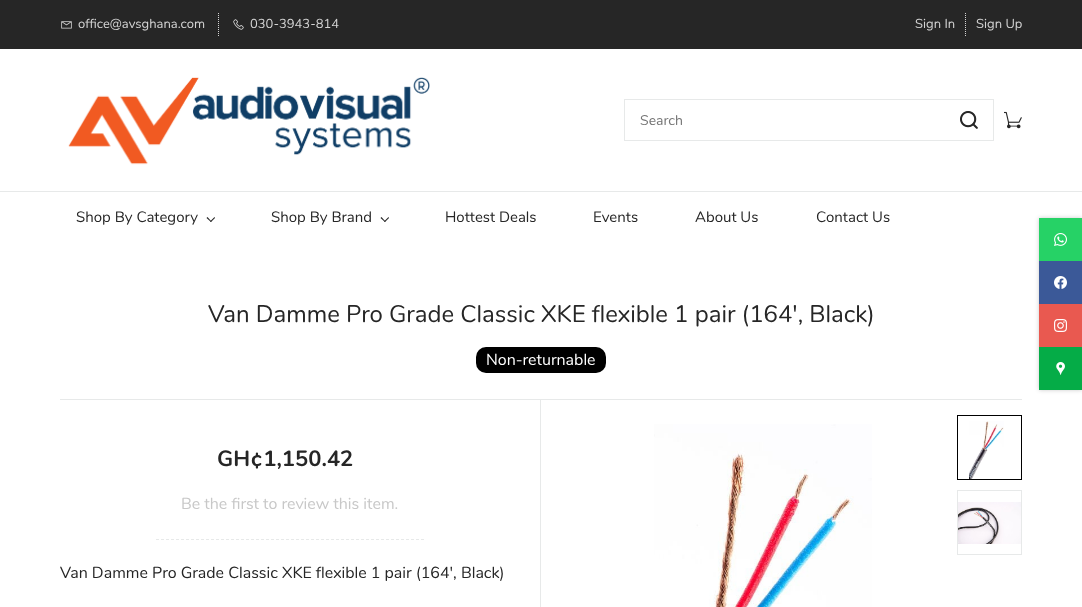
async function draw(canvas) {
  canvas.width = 1082
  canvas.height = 607
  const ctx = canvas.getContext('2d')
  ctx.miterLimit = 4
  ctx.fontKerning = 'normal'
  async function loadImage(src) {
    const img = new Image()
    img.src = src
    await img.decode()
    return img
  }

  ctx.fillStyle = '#fff'
  ctx.fillRect(0, 0, 1082, 607)
  ctx.fillStyle = '#262626'
  ctx.fillRect(0, 0, 1082, 49)
  ctx.drawImage(await loadImage('image0.png'), 61, 21, 11, 8)
  ctx.font = '13px Nunito'
  ctx.fillStyle = '#d4d4d4'
  ctx.fillText('office@avsghana.com', 78, 28)
  ctx.beginPath()
  ctx.moveTo(218.5, 13)
  ctx.lineTo(218.5, 36)
  ctx.strokeStyle = '#d4d4d4'
  ctx.setLineDash([1, 1])
  ctx.stroke()
  ctx.drawImage(await loadImage('image1.png'), 233, 19, 11, 11)
  ctx.fillText('030-3943-814', 250, 28)
  ctx.fillText('Sign In', 915, 28)
  ctx.beginPath()
  ctx.moveTo(965.5, 13)
  ctx.lineTo(965.5, 36)
  ctx.stroke()
  ctx.fillText('Sign Up', 976, 28)
  ctx.drawImage(await loadImage('image2.png'), 68, 77, 362, 88)
  ctx.strokeStyle = '#e7e9e9'
  ctx.setLineDash([])
  ctx.strokeRect(624.5, 99.5, 369, 41)
  ctx.font = '14px Nunito'
  ctx.fillStyle = '#757575'
  ctx.fillText('Search', 640, 125)
  ctx.drawImage(await loadImage('image3.png'), 960, 111, 18, 18)
  ctx.drawImage(await loadImage('image4.png'), 1004, 111, 18, 18)
  ctx.fillStyle = '#e7e9e9'
  ctx.fillRect(0, 191, 1082, 1)
  ctx.font = '15px Nunito'
  ctx.fillStyle = '#262626'
  ctx.fillText('Shop By Category', 76, 222)
  ctx.beginPath()
  ctx.moveTo(215, 218)
  ctx.lineTo(211, 222)
  ctx.lineTo(210, 221.5)
  ctx.lineTo(214.5, 217)
  ctx.closePath()
  ctx.fill()
  ctx.beginPath()
  ctx.moveTo(211.5, 221.5)
  ctx.lineTo(211, 222)
  ctx.lineTo(206.5, 218)
  ctx.lineTo(207.5, 217)
  ctx.closePath()
  ctx.fill()
  ctx.fillText('Shop By Brand', 271, 222)
  ctx.beginPath()
  ctx.moveTo(389, 218)
  ctx.lineTo(385, 222)
  ctx.lineTo(384, 221.5)
  ctx.lineTo(388.5, 217)
  ctx.closePath()
  ctx.fill()
  ctx.beginPath()
  ctx.moveTo(385.5, 221.5)
  ctx.lineTo(385, 222)
  ctx.lineTo(380.5, 218)
  ctx.lineTo(381.5, 217)
  ctx.closePath()
  ctx.fill()
  ctx.fillText('Hottest Deals', 445, 222)
  ctx.fillText('Events', 593, 222)
  ctx.fillText('About Us', 695, 222)
  ctx.fillText('Contact Us', 816, 222)
  ctx.fillStyle = '#00000036'
  ctx.filter = 'blur(2px)'
  ctx.beginPath()
  ctx.rect(1039, 218, 43, 172)
  ctx.fill()
  ctx.filter = 'none'
  ctx.fillStyle = '#26d266'
  ctx.fillRect(1039, 218, 43, 43)
  ctx.drawImage(await loadImage('image5.png'), 1054, 233, 13, 13)
  ctx.fillStyle = '#3b5998'
  ctx.fillRect(1039, 261, 43, 43)
  ctx.drawImage(await loadImage('image6.png'), 1054, 276, 13, 13)
  ctx.fillStyle = '#e95950'
  ctx.fillRect(1039, 304, 43, 43)
  ctx.drawImage(await loadImage('image7.png'), 1054, 319, 13, 13)
  ctx.fillStyle = '#05ac47'
  ctx.fillRect(1039, 347, 43, 43)
  ctx.drawImage(await loadImage('image8.png'), 1056, 362, 9, 13)
  ctx.font = '24px Nunito'
  ctx.fillStyle = '#262626'
  ctx.fillText('Van Damme Pro Grade Classic XKE flexible 1 pair (164\', Black)', 208, 322)
  ctx.fillStyle = '#000'
  ctx.beginPath()
  ctx.roundRect(476, 347, 130, 26, 10)
  ctx.fill()
  ctx.font = '16px Nunito'
  ctx.fillStyle = '#fff'
  ctx.fillText('Non-returnable', 486, 365)
  ctx.fillStyle = '#e7e9e9'
  ctx.fillRect(60, 399, 962, 1)
  ctx.fillRect(540, 400, 1, 207)
  ctx.beginPath()
  ctx.moveTo(156, 539.5)
  ctx.lineTo(424, 539.5)
  ctx.setLineDash([3, 2])
  ctx.stroke()
  ctx.font = 'bold 22px Nunito'
  ctx.fillStyle = '#262626'
  ctx.fillText('GH¢1,150.42', 217, 466)
  ctx.font = '16px Nunito'
  ctx.fillStyle = '#c8c8c8'
  ctx.fillText('Be the first to review this item.', 181, 509)
  ctx.fillStyle = '#262626'
  ctx.fillText('Van Damme Pro Grade Classic XKE flexible 1 pair (164\', Black)', 60, 578)
  ctx.drawImage(await loadImage('image9.png'), 654, 424, 218, 183)
  ctx.strokeStyle = '#000'
  ctx.setLineDash([])
  ctx.strokeRect(957.5, 415.5, 64, 64)
  ctx.drawImage(await loadImage('image10.png'), 969, 421, 35, 58)
  ctx.strokeStyle = '#e7e9e9'
  ctx.strokeRect(957.5, 490.5, 64, 64)
  ctx.drawImage(await loadImage('image11.png'), 958, 502, 63, 42)
}

draw(document.querySelector('canvas'))
